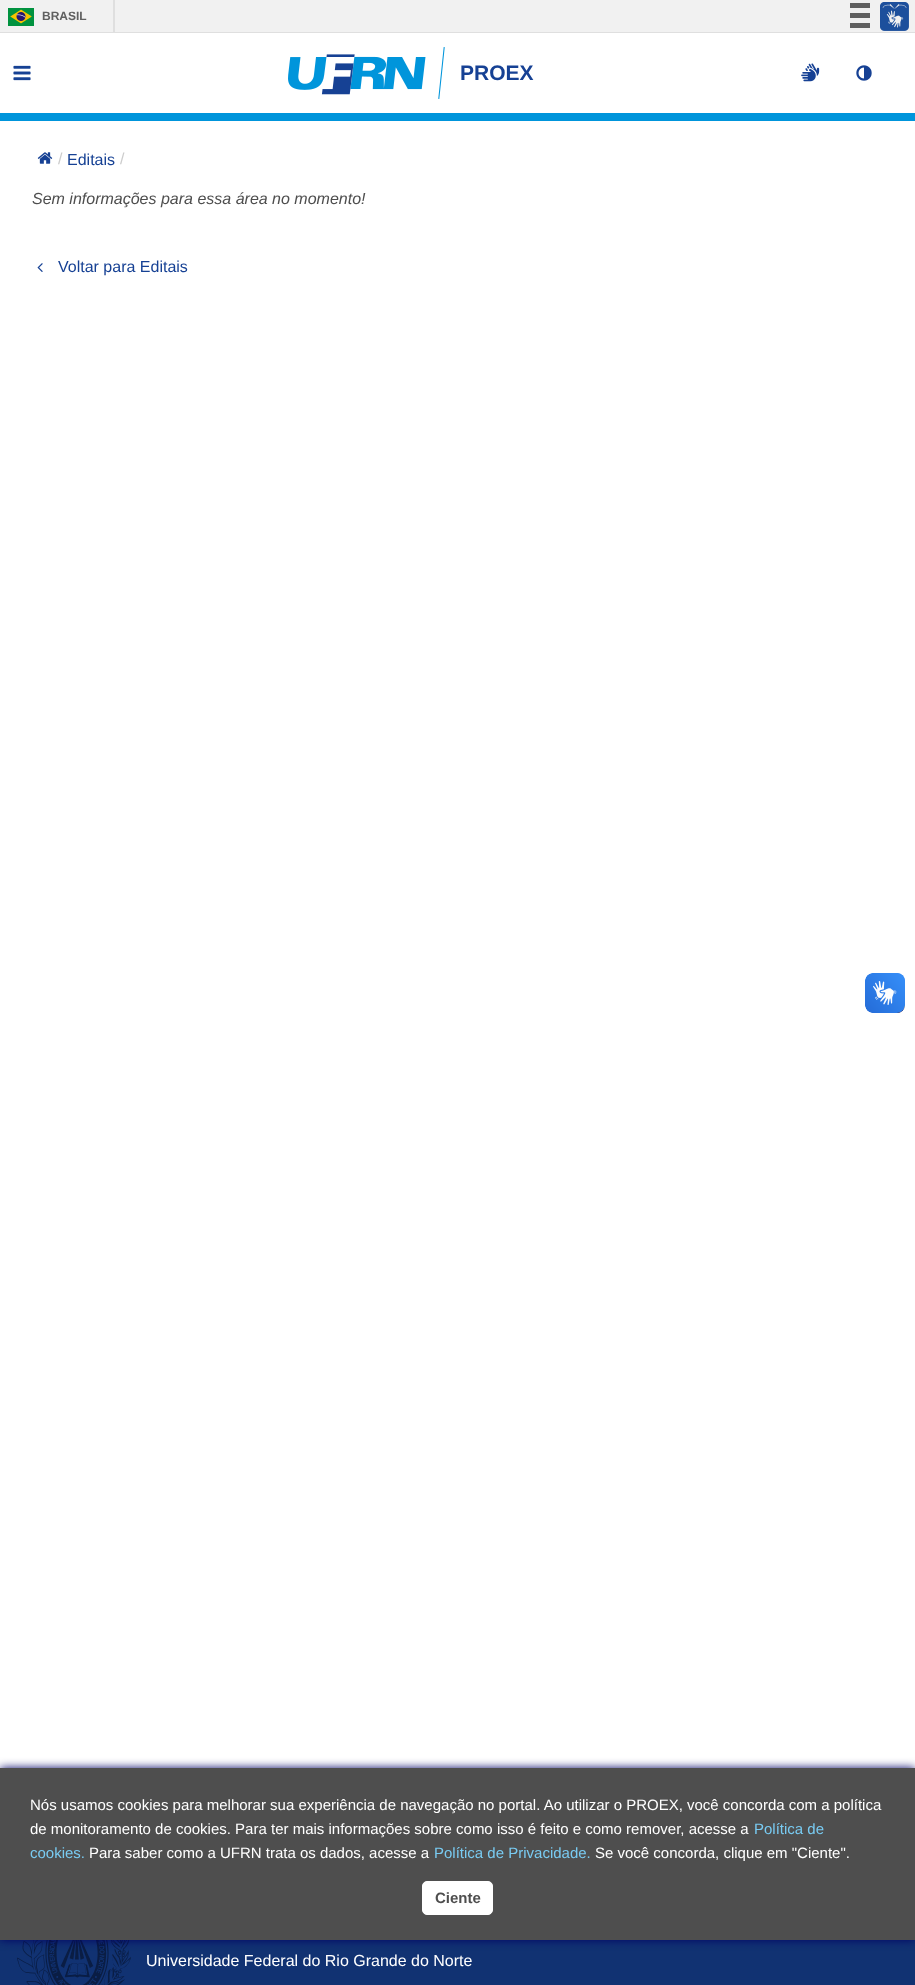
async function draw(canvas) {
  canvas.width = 915
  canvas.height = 1985
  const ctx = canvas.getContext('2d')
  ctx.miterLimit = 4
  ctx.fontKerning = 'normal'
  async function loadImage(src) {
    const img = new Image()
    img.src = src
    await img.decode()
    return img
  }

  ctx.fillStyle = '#f1f1f1'
  ctx.fillRect(0, 0, 915, 1985)
  ctx.fillStyle = '#dfdfdf'
  ctx.fillRect(0, 32, 915, 1)
  ctx.fillRect(113, 0, 2, 32)
  ctx.drawImage(await loadImage('image0.png'), 8, 8, 26, 18)
  ctx.font = 'bold 12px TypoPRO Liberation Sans'
  ctx.fillStyle = '#606060'
  ctx.fillText('BRASIL', 42, 20)
  ctx.fillRect(850, 3, 20, 5)
  ctx.fillRect(850, 13, 20, 5)
  ctx.fillRect(850, 23, 20, 5)
  ctx.drawImage(await loadImage('image1.png'), 880, 2, 29, 29)
  ctx.fillStyle = '#fff'
  ctx.fillRect(0, 33, 915, 80)
  ctx.fillStyle = '#0095db'
  ctx.fillRect(0, 113, 915, 8)
  ctx.drawImage(await loadImage('image2.png'), 13, 65, 18, 16)
  ctx.drawImage(await loadImage('image3.png'), 288, 47, 157, 52)
  ctx.font = 'bold 21px TypoPRO Liberation Sans'
  ctx.fillStyle = '#164194'
  ctx.fillText('PROEX', 460, 80)
  ctx.drawImage(await loadImage('image4.png'), 801, 63, 19, 19)
  ctx.drawImage(await loadImage('image5.png'), 856, 65, 16, 16)
  ctx.fillStyle = '#fff'
  ctx.fillRect(0, 121, 915, 1647)
  ctx.drawImage(await loadImage('image6.png'), 37, 152, 16, 12)
  ctx.font = '16px TypoPRO Liberation Sans'
  ctx.fillStyle = '#ccc'
  ctx.fillText('/', 58, 164)
  ctx.fillStyle = '#164194'
  ctx.fillText('Editais', 67, 165)
  ctx.fillStyle = '#ccc'
  ctx.fillText('/', 120, 164)
  ctx.font = 'italic 16px TypoPRO Liberation Sans'
  ctx.fillStyle = '#4e4e4e'
  ctx.fillText('Sem informações para essa área no momento!', 32, 204)
  ctx.drawImage(await loadImage('image7.png'), 37, 263, 6, 9)
  ctx.font = '16px TypoPRO Liberation Sans'
  ctx.fillStyle = '#164194'
  ctx.fillText('Voltar para Editais', 58, 272)
  ctx.fillStyle = '#113272'
  ctx.fillRect(0, 1940, 915, 45)
  ctx.drawImage(await loadImage('image8.png'), 17, 1940, 114, 45)
  ctx.fillStyle = '#006'
  ctx.filter = 'blur(5px)'
  ctx.beginPath()
  ctx.rect(0, 1768, 915, 172)
  ctx.fill()
  ctx.filter = 'none'
  ctx.fillStyle = '#4e4e4e'
  ctx.fillRect(0, 1768, 915, 172)
  ctx.font = '15px TypoPRO Liberation Sans'
  ctx.fillStyle = '#fff'
  ctx.fillText('Nós usamos cookies para melhorar sua experiência de navegação no portal. Ao utilizar o PROEX, você concorda com a política', 30, 1810)
  ctx.fillText('de monitoramento de cookies. Para ter mais informações sobre como isso é feito e como remover, acesse a', 30, 1834)
  ctx.fillStyle = '#79cbf2'
  ctx.fillText('Política de', 754, 1834)
  ctx.fillText('cookies.', 30, 1858)
  ctx.fillStyle = '#fff'
  ctx.fillText('Para saber como a UFRN trata os dados, acesse a', 89, 1858)
  ctx.fillStyle = '#79cbf2'
  ctx.fillText('Política de Privacidade.', 434, 1858)
  ctx.fillStyle = '#fff'
  ctx.fillText('Se você concorda, clique em "Ciente".', 595, 1858)
  ctx.beginPath()
  ctx.roundRect(422.5, 1881.5, 70, 33, 4.5)
  ctx.fill()
  ctx.strokeStyle = '#fff'
  ctx.stroke()
  ctx.font = 'bold 15px TypoPRO Liberation Sans'
  ctx.fillStyle = '#4e4e4e'
  ctx.fillText('Ciente', 435, 1903)
  ctx.font = '16px TypoPRO Liberation Sans'
  ctx.fillStyle = '#fff'
  ctx.fillText('Universidade Federal do Rio Grande do Norte', 146, 1966)
  ctx.drawImage(await loadImage('image9.png'), 865, 973, 40, 40)
  ctx.drawImage(await loadImage('image10.png'), 865, 973, 40, 40)
}

draw(document.querySelector('canvas'))
